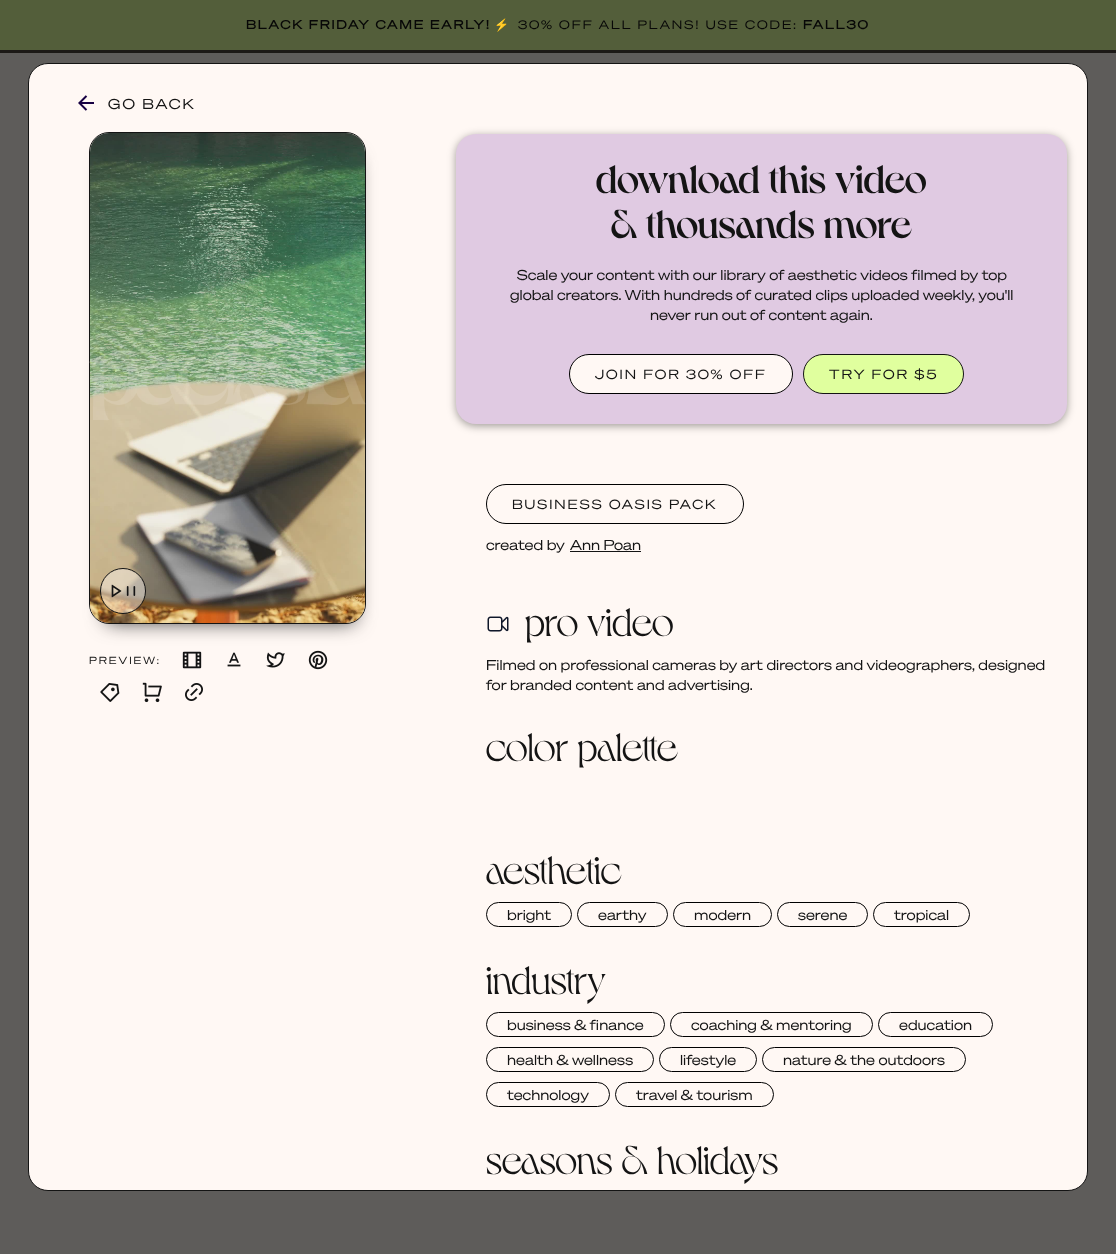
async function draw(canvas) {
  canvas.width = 1116
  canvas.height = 1254
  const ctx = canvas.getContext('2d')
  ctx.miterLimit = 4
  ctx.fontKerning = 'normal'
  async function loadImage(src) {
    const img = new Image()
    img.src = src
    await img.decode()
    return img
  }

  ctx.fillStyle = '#5e5c5a'
  ctx.fillRect(0, 0, 1116, 1254)
  ctx.fillStyle = '#535e3a'
  ctx.fillRect(0, 0, 1116, 50)
  ctx.fillStyle = '#1c1916'
  ctx.fillRect(0, 50, 1116, 3)
  ctx.letterSpacing = '2px'
  ctx.font = 'bold 12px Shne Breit'
  ctx.fillStyle = '#070707'
  ctx.fillText('BLACK FRIDAY CAME EARLY!', 246, 29)
  ctx.font = 'bold 12px Noto Color Emoji'
  ctx.fillText('⚡️', 494, 29)
  ctx.font = '12px Shne Breit'
  ctx.fillText('30% OFF ALL PLANS! USE CODE:', 518, 29)
  ctx.font = 'bold 12px Shne Breit'
  ctx.fillText('FALL30', 803, 29)
  ctx.fillStyle = '#fff8f4'
  ctx.beginPath()
  ctx.roundRect(28.5, 63.5, 1059, 1127, 19.5)
  ctx.fill()
  ctx.strokeStyle = '#141414'
  ctx.stroke()
  ctx.drawImage(await loadImage('image0.png'), 78, 95, 16, 16)
  ctx.font = '14px Shne Breit'
  ctx.fillStyle = '#141414'
  ctx.fillText('GO BACK', 108, 109)
  ctx.drawImage(await loadImage('image5.png'), 182, 651, 20, 18)
  ctx.drawImage(await loadImage('image6.png'), 227, 652, 14, 15)
  ctx.drawImage(await loadImage('image7.png'), 266, 652, 19, 16)
  ctx.drawImage(await loadImage('image8.png'), 308, 650, 20, 20)
  ctx.fillStyle = '#333'
  ctx.filter = 'blur(10px)'
  ctx.beginPath()
  ctx.roundRect(106, 158, 249, 464, 6)
  ctx.fill()
  ctx.filter = 'none'
  ctx.beginPath()
  ctx.roundRect(89.5, 132.5, 276, 491, 19.5)
  ctx.stroke()
  ctx.drawImage(await loadImage('image1.png'), 90, 133, 275, 490)
  ctx.drawImage(await loadImage('image2.png'), 89, 336, 277, 84)
  ctx.fillStyle = '#fff8f473'
  ctx.beginPath()
  ctx.arc(123, 591, 22.5, 0, 2 * Math.PI)
  ctx.fill()
  ctx.stroke()
  ctx.drawImage(await loadImage('image3.png'), 111, 584, 11, 14)
  ctx.drawImage(await loadImage('image4.png'), 126, 586, 10, 10)
  ctx.font = '10px Shne Breit'
  ctx.fillStyle = '#141414'
  ctx.fillText('PREVIEW:', 89, 664)
  ctx.drawImage(await loadImage('image9.png'), 100, 683, 20, 19)
  ctx.drawImage(await loadImage('image10.png'), 142, 682, 20, 21)
  ctx.drawImage(await loadImage('image11.png'), 185, 683, 18, 18)
  ctx.fillStyle = '#00000061'
  ctx.filter = 'blur(4px)'
  ctx.beginPath()
  ctx.roundRect(456, 136, 611, 290, 20)
  ctx.fill()
  ctx.filter = 'none'
  ctx.fillStyle = '#e0cae2'
  ctx.beginPath()
  ctx.roundRect(456, 134, 611, 290, 20)
  ctx.fill()
  ctx.letterSpacing = '0px'
  ctx.font = '500 40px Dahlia'
  ctx.fillStyle = '#141414'
  ctx.fillText('download this video', 596, 193)
  ctx.fillText('& thousands more', 611, 238)
  ctx.font = '14px Shne Breit'
  ctx.fillText('Scale your content with our library of aesthetic videos filmed by top', 517, 280)
  ctx.fillText('global creators. With hundreds of curated clips uploaded weekly, you\'ll', 510, 300)
  ctx.fillText('never run out of content again.', 650, 320)
  ctx.fillStyle = '#fff8f4'
  ctx.beginPath()
  ctx.roundRect(569.5, 354.5, 223, 39, 19.5)
  ctx.fill()
  ctx.strokeStyle = '#000'
  ctx.stroke()
  ctx.letterSpacing = '2px'
  ctx.font = '13px Shne Breit'
  ctx.fillStyle = '#141414'
  ctx.fillText('JOIN FOR 30% OFF', 595, 379)
  ctx.fillStyle = '#e0ff9e'
  ctx.beginPath()
  ctx.roundRect(803.5, 354.5, 160, 39, 19.5)
  ctx.fill()
  ctx.strokeStyle = '#141414'
  ctx.stroke()
  ctx.fillStyle = '#141414'
  ctx.fillText('TRY FOR $5', 829, 379)
  ctx.beginPath()
  ctx.roundRect(486.5, 484.5, 257, 39, 19.5)
  ctx.strokeStyle = '#000'
  ctx.stroke()
  ctx.fillText('BUSINESS OASIS PACK', 512, 509)
  ctx.letterSpacing = '0px'
  ctx.font = '14px Shne Breit'
  ctx.fillText('created by', 486, 550)
  ctx.fillText('Ann Poan', 570, 550)
  ctx.fillRect(570, 551, 71, 1)
  ctx.drawImage(await loadImage('image12.png'), 487, 616, 22, 16)
  ctx.font = '40px Dahlia'
  ctx.fillText('pro video', 525, 636)
  ctx.font = '14px Shne Breit'
  ctx.fillText('Filmed on professional cameras by art directors and videographers, designed', 486, 670)
  ctx.fillText('for branded content and advertising.', 486, 690)
  ctx.font = '40px Dahlia'
  ctx.fillText('color palette', 486, 761)
  ctx.fillText('aesthetic', 486, 884)
  ctx.beginPath()
  ctx.roundRect(486.5, 902.5, 85, 24, 12)
  ctx.stroke()
  ctx.font = '14px Shne Breit'
  ctx.fillText('bright', 507, 920)
  ctx.beginPath()
  ctx.roundRect(577.5, 902.5, 90, 24, 12)
  ctx.stroke()
  ctx.fillText('earthy', 598, 920)
  ctx.beginPath()
  ctx.roundRect(673.5, 902.5, 98, 24, 12)
  ctx.stroke()
  ctx.fillText('modern', 694, 920)
  ctx.beginPath()
  ctx.roundRect(777.5, 902.5, 90, 24, 12)
  ctx.stroke()
  ctx.fillText('serene', 798, 920)
  ctx.beginPath()
  ctx.roundRect(873.5, 902.5, 96, 24, 12)
  ctx.stroke()
  ctx.fillText('tropical', 894, 920)
  ctx.font = '40px Dahlia'
  ctx.fillText('industry', 486, 994)
  ctx.beginPath()
  ctx.roundRect(486.5, 1012.5, 178, 24, 12)
  ctx.stroke()
  ctx.font = '14px Shne Breit'
  ctx.fillText('business & finance', 507, 1030)
  ctx.beginPath()
  ctx.roundRect(670.5, 1012.5, 202, 24, 12)
  ctx.stroke()
  ctx.fillText('coaching & mentoring', 691, 1030)
  ctx.beginPath()
  ctx.roundRect(878.5, 1012.5, 114, 24, 12)
  ctx.stroke()
  ctx.fillText('education', 899, 1030)
  ctx.beginPath()
  ctx.roundRect(486.5, 1047.5, 167, 24, 12)
  ctx.stroke()
  ctx.fillText('health & wellness', 507, 1065)
  ctx.beginPath()
  ctx.roundRect(659.5, 1047.5, 97, 24, 12)
  ctx.stroke()
  ctx.fillText('lifestyle', 680, 1065)
  ctx.beginPath()
  ctx.roundRect(762.5, 1047.5, 203, 24, 12)
  ctx.stroke()
  ctx.fillText('nature & the outdoors', 783, 1065)
  ctx.beginPath()
  ctx.roundRect(486.5, 1082.5, 123, 24, 12)
  ctx.stroke()
  ctx.fillText('technology', 507, 1100)
  ctx.beginPath()
  ctx.roundRect(615.5, 1082.5, 158, 24, 12)
  ctx.stroke()
  ctx.fillText('travel & tourism', 636, 1100)
  ctx.font = '40px Dahlia'
  ctx.fillText('seasons & holidays', 486, 1174)
}

draw(document.querySelector('canvas'))
